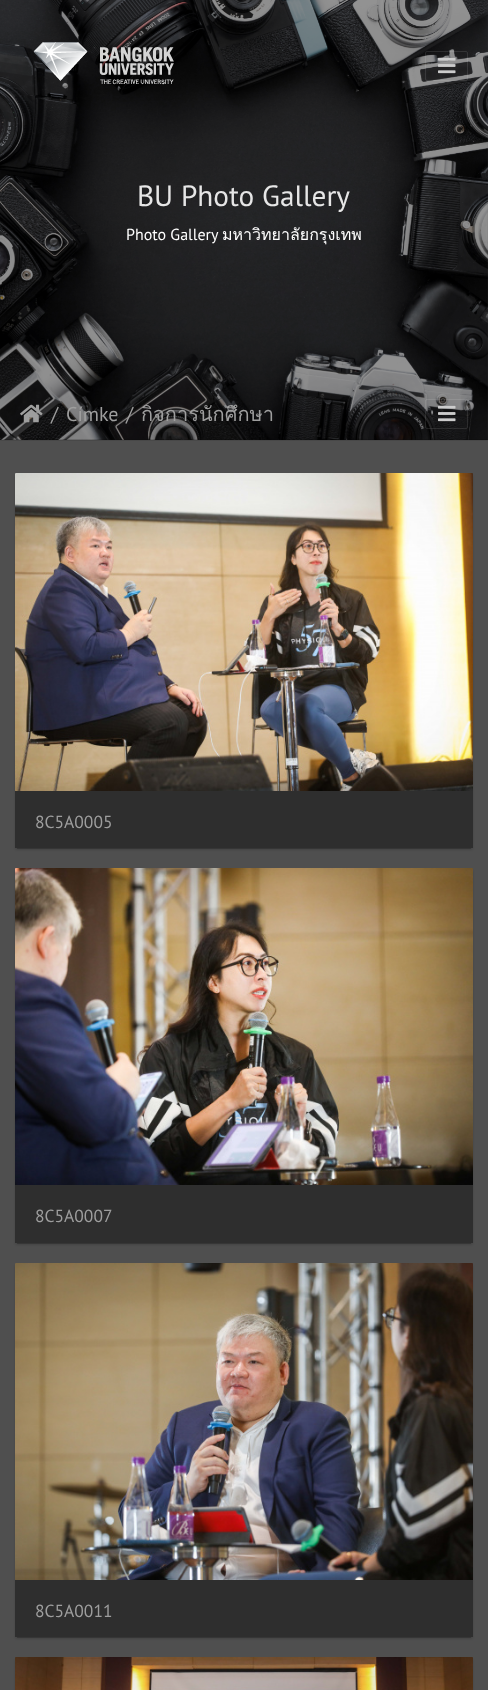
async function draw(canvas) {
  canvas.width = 488
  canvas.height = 1690
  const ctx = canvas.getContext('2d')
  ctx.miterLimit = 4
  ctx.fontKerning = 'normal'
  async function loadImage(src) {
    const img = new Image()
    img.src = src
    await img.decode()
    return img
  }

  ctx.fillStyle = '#4f4f4f'
  ctx.fillRect(0, 0, 488, 1690)
  ctx.drawImage(await loadImage('image2.png'), 0, 0, 488, 440)
  ctx.drawImage(await loadImage('image0.png'), 33, 42, 141, 43)
  ctx.beginPath()
  ctx.roundRect(425.5, 51.5, 42, 29, 1.5)
  ctx.strokeStyle = '#ffffff1a'
  ctx.stroke()
  ctx.drawImage(await loadImage('image1.png'), 438, 57, 18, 17)
  ctx.font = '29.25px PT Sans'
  ctx.fillStyle = '#e6e6e6'
  ctx.fillText('BU Photo Gallery', 137, 206)
  ctx.font = '16px PT Sans'
  ctx.fillStyle = '#fff'
  ctx.fillText('Photo Gallery', 126, 240)
  ctx.font = '16px Loma'
  ctx.fillText('มหาวิทยาลัยกรุงเทพ', 222, 240)
  ctx.save()
  ctx.beginPath()
  ctx.rect(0, 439, 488, 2)
  ctx.clip()
  ctx.fillStyle = '#0000003d'
  ctx.filter = 'blur(1px)'
  ctx.beginPath()
  ctx.rect(0, 390, 488, 50)
  ctx.fill()
  ctx.filter = 'none'
  ctx.restore()
  ctx.drawImage(await loadImage('image3.png'), 20, 404, 23, 19)
  ctx.font = '20px PT Sans'
  ctx.fillStyle = '#9e9e9e'
  ctx.fillText('/', 51, 421)
  ctx.fillText('Címke', 66, 421)
  ctx.fillText('/', 126, 421)
  ctx.font = '20px Loma'
  ctx.fillText('กิจการนักศึกษา', 141, 421)
  ctx.beginPath()
  ctx.roundRect(425.5, 399.5, 42, 29, 1.5)
  ctx.stroke()
  ctx.drawImage(await loadImage('image4.png'), 438, 405, 18, 17)
  ctx.fillStyle = '#00000033'
  ctx.filter = 'blur(0.5px)'
  ctx.beginPath()
  ctx.rect(17, 478, 454, 371)
  ctx.fill()
  ctx.filter = 'none'
  ctx.fillStyle = '#00000024'
  ctx.filter = 'blur(1px)'
  ctx.beginPath()
  ctx.roundRect(15, 475, 458, 375, 2)
  ctx.fill()
  ctx.filter = 'none'
  ctx.drawImage(await loadImage('image5.png'), 15, 473, 458, 318)
  ctx.fillStyle = '#2e2e2e'
  ctx.fillRect(15, 791, 458, 57)
  ctx.font = '17.5px PT Sans'
  ctx.fillStyle = '#9e9e9e'
  ctx.fillText('8C5A0005', 35, 828)
  ctx.fillStyle = '#00000033'
  ctx.filter = 'blur(0.5px)'
  ctx.beginPath()
  ctx.rect(17, 873, 454, 371)
  ctx.fill()
  ctx.filter = 'none'
  ctx.fillStyle = '#00000024'
  ctx.filter = 'blur(1px)'
  ctx.beginPath()
  ctx.roundRect(15, 870, 458, 375, 2)
  ctx.fill()
  ctx.filter = 'none'
  ctx.drawImage(await loadImage('image6.png'), 15, 868, 458, 317)
  ctx.fillStyle = '#2e2e2e'
  ctx.fillRect(15, 1185, 458, 58)
  ctx.fillStyle = '#9e9e9e'
  ctx.fillText('8C5A0007', 35, 1222)
  ctx.fillStyle = '#00000033'
  ctx.filter = 'blur(0.5px)'
  ctx.beginPath()
  ctx.rect(17, 1268, 454, 370)
  ctx.fill()
  ctx.filter = 'none'
  ctx.fillStyle = '#00000024'
  ctx.filter = 'blur(1px)'
  ctx.beginPath()
  ctx.roundRect(15, 1265, 458, 374, 2)
  ctx.fill()
  ctx.filter = 'none'
  ctx.drawImage(await loadImage('image7.png'), 15, 1263, 458, 317)
  ctx.fillStyle = '#2e2e2e'
  ctx.fillRect(15, 1580, 458, 57)
  ctx.fillStyle = '#9e9e9e'
  ctx.fillText('8C5A0011', 35, 1617)
  ctx.fillStyle = '#00000024'
  ctx.filter = 'blur(1px)'
  ctx.beginPath()
  ctx.roundRect(15, 1659, 458, 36, 2)
  ctx.fill()
  ctx.filter = 'none'
  ctx.drawImage(await loadImage('image8.png'), 15, 1657, 458, 33)
}

draw(document.querySelector('canvas'))
